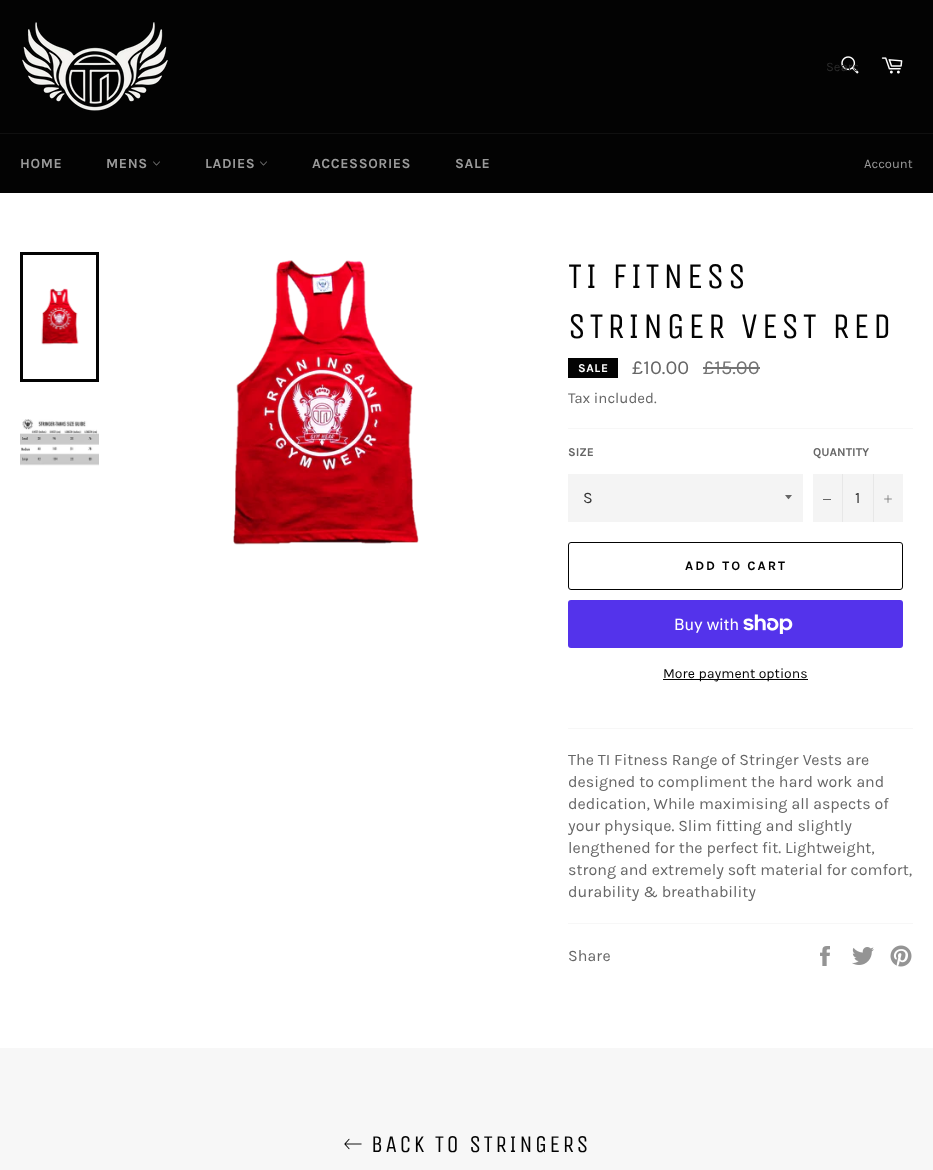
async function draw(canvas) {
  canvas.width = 933
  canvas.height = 1170
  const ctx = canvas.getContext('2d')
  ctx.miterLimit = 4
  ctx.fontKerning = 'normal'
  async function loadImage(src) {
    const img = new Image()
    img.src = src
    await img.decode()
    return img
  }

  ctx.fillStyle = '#030303'
  ctx.fillRect(0, 0, 933, 1170)
  ctx.drawImage(await loadImage('image0.png'), 22, 22, 146, 89)
  ctx.drawImage(await loadImage('image1.png'), 841, 56, 18, 18)
  ctx.save()
  ctx.beginPath()
  ctx.rect(826, 59, 32, 15)
  ctx.clip()
  ctx.font = '13px Karla'
  ctx.fillStyle = '#2b2b2b'
  ctx.fillText('Searc', 826, 71)
  ctx.restore()
  ctx.drawImage(await loadImage('image2.png'), 881, 57, 22, 17)
  ctx.fillStyle = '#101010'
  ctx.fillRect(0, 133, 933, 1)
  ctx.letterSpacing = '0.6px'
  ctx.font = 'bold 14px Karla'
  ctx.fillStyle = '#9a9a9a'
  ctx.fillText('HOME', 20, 168)
  ctx.fillText('MENS', 106, 168)
  ctx.drawImage(await loadImage('image3.png'), 153, 161, 7, 5)
  ctx.fillText('LADIES', 205, 168)
  ctx.drawImage(await loadImage('image3.png'), 260, 161, 7, 5)
  ctx.fillText('ACCESSORIES', 312, 168)
  ctx.fillText('SALE', 455, 168)
  ctx.letterSpacing = '0px'
  ctx.font = '13px Karla'
  ctx.fillText('Account', 864, 168)
  ctx.fillStyle = '#fff'
  ctx.fillRect(0, 193, 933, 855)
  ctx.drawImage(await loadImage('image4.png'), 41, 288, 38, 57)
  ctx.strokeStyle = '#030303'
  ctx.lineWidth = 3
  ctx.strokeRect(21.5, 253.5, 76, 127)
  ctx.drawImage(await loadImage('image5.png'), 20, 419, 79, 47)
  ctx.drawImage(await loadImage('image6.png'), 233, 260, 186, 285)
  ctx.letterSpacing = '3.6px'
  ctx.font = '36px Unica One'
  ctx.fillStyle = '#030303'
  ctx.fillText('TI FITNESS', 568, 288)
  ctx.fillText('STRINGER VEST RED', 568, 338)
  ctx.fillRect(568, 358, 50, 20)
  ctx.letterSpacing = '0.6px'
  ctx.font = 'bold 12px Karla'
  ctx.fillStyle = '#fff'
  ctx.fillText('SALE', 578, 372)
  ctx.letterSpacing = '0px'
  ctx.font = '20px Karla'
  ctx.fillStyle = '#666'
  ctx.fillText('£10.00', 632, 374)
  ctx.fillStyle = '#737373'
  ctx.fillText('£15.00', 703, 374)
  ctx.fillRect(703, 367, 57, 2)
  ctx.font = '15px Karla'
  ctx.fillStyle = '#666'
  ctx.fillText('Tax included.', 568, 403)
  ctx.fillStyle = '#f7f7f7'
  ctx.fillRect(568, 428, 345, 1)
  ctx.font = 'bold 12px Karla'
  ctx.fillStyle = '#666'
  ctx.fillText('SIZE', 568, 456)
  ctx.fillStyle = '#f4f4f4'
  ctx.fillRect(568, 474, 235, 48)
  ctx.fillStyle = '#666'
  ctx.beginPath()
  ctx.moveTo(785, 495)
  ctx.bezierCurveTo(789.5, 500.5, 787.5, 500.5, 792, 495)
  ctx.closePath()
  ctx.fill()
  ctx.font = '16px Karla'
  ctx.fillStyle = '#333'
  ctx.fillText('S', 583, 503)
  ctx.font = 'bold 12px Karla'
  ctx.fillStyle = '#666'
  ctx.fillText('QUANTITY', 813, 456)
  ctx.fillStyle = '#f4f4f4'
  ctx.fillRect(813, 474, 90, 48)
  ctx.fillStyle = '#e7e7e7'
  ctx.fillRect(842, 474, 1, 48)
  ctx.fillStyle = '#666'
  ctx.fillRect(823, 499, 8, 1)
  ctx.font = '16px Karla'
  ctx.fillStyle = '#333'
  ctx.fillText('1', 855, 503)
  ctx.fillStyle = '#e7e7e7'
  ctx.fillRect(873, 474, 1, 48)
  ctx.drawImage(await loadImage('image7.png'), 884, 495, 8, 8)
  ctx.beginPath()
  ctx.roundRect(568.5, 542.5, 334, 47, 2.5)
  ctx.lineWidth = 1
  ctx.stroke()
  ctx.letterSpacing = '2px'
  ctx.font = 'bold 13px Karla'
  ctx.fillStyle = '#030303'
  ctx.fillText('ADD TO CART', 685, 570)
  ctx.fillStyle = '#5433eb'
  ctx.beginPath()
  ctx.roundRect(568, 600, 335, 48, 3)
  ctx.fill()
  ctx.letterSpacing = '0px'
  ctx.font = '16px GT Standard'
  ctx.fillStyle = '#fff'
  ctx.fillText('Buy with', 674, 630)
  ctx.drawImage(await loadImage('image8.png'), 743, 614, 50, 20)
  ctx.fillStyle = '#030303'
  ctx.fillRect(663, 679, 145, 1)
  ctx.font = '14px Karla'
  ctx.fillText('More payment options', 663, 678)
  ctx.fillStyle = '#f7f7f7'
  ctx.fillRect(568, 728, 345, 1)
  ctx.font = '16px Karla'
  ctx.fillStyle = '#666'
  ctx.fillText('The TI Fitness Range of Stringer Vests are', 568, 765)
  ctx.fillText('designed to compliment the hard work and', 568, 787)
  ctx.fillText('dedication, While maximising all aspects of', 568, 809)
  ctx.fillText('your physique. Slim fitting and slightly', 568, 831)
  ctx.fillText('lengthened for the perfect fit. Lightweight,', 568, 853)
  ctx.fillText('strong and extremely soft material for comfort,', 568, 875)
  ctx.fillText('durability & breathability', 568, 897)
  ctx.fillStyle = '#f7f7f7'
  ctx.fillRect(568, 923, 345, 1)
  ctx.fillStyle = '#666'
  ctx.fillText('Share', 568, 961)
  ctx.drawImage(await loadImage('image9.png'), 820, 946, 10, 20)
  ctx.drawImage(await loadImage('image10.png'), 852, 947, 22, 18)
  ctx.drawImage(await loadImage('image11.png'), 890, 945, 22, 22)
  ctx.fillStyle = '#f7f7f7'
  ctx.fillRect(0, 1048, 933, 122)
  ctx.drawImage(await loadImage('image12.png'), 344, 1138, 18, 12)
  ctx.letterSpacing = '2.4px'
  ctx.font = '24px Unica One'
  ctx.fillStyle = '#030303'
  ctx.fillText('BACK TO STRINGERS', 371, 1152)
}

draw(document.querySelector('canvas'))
